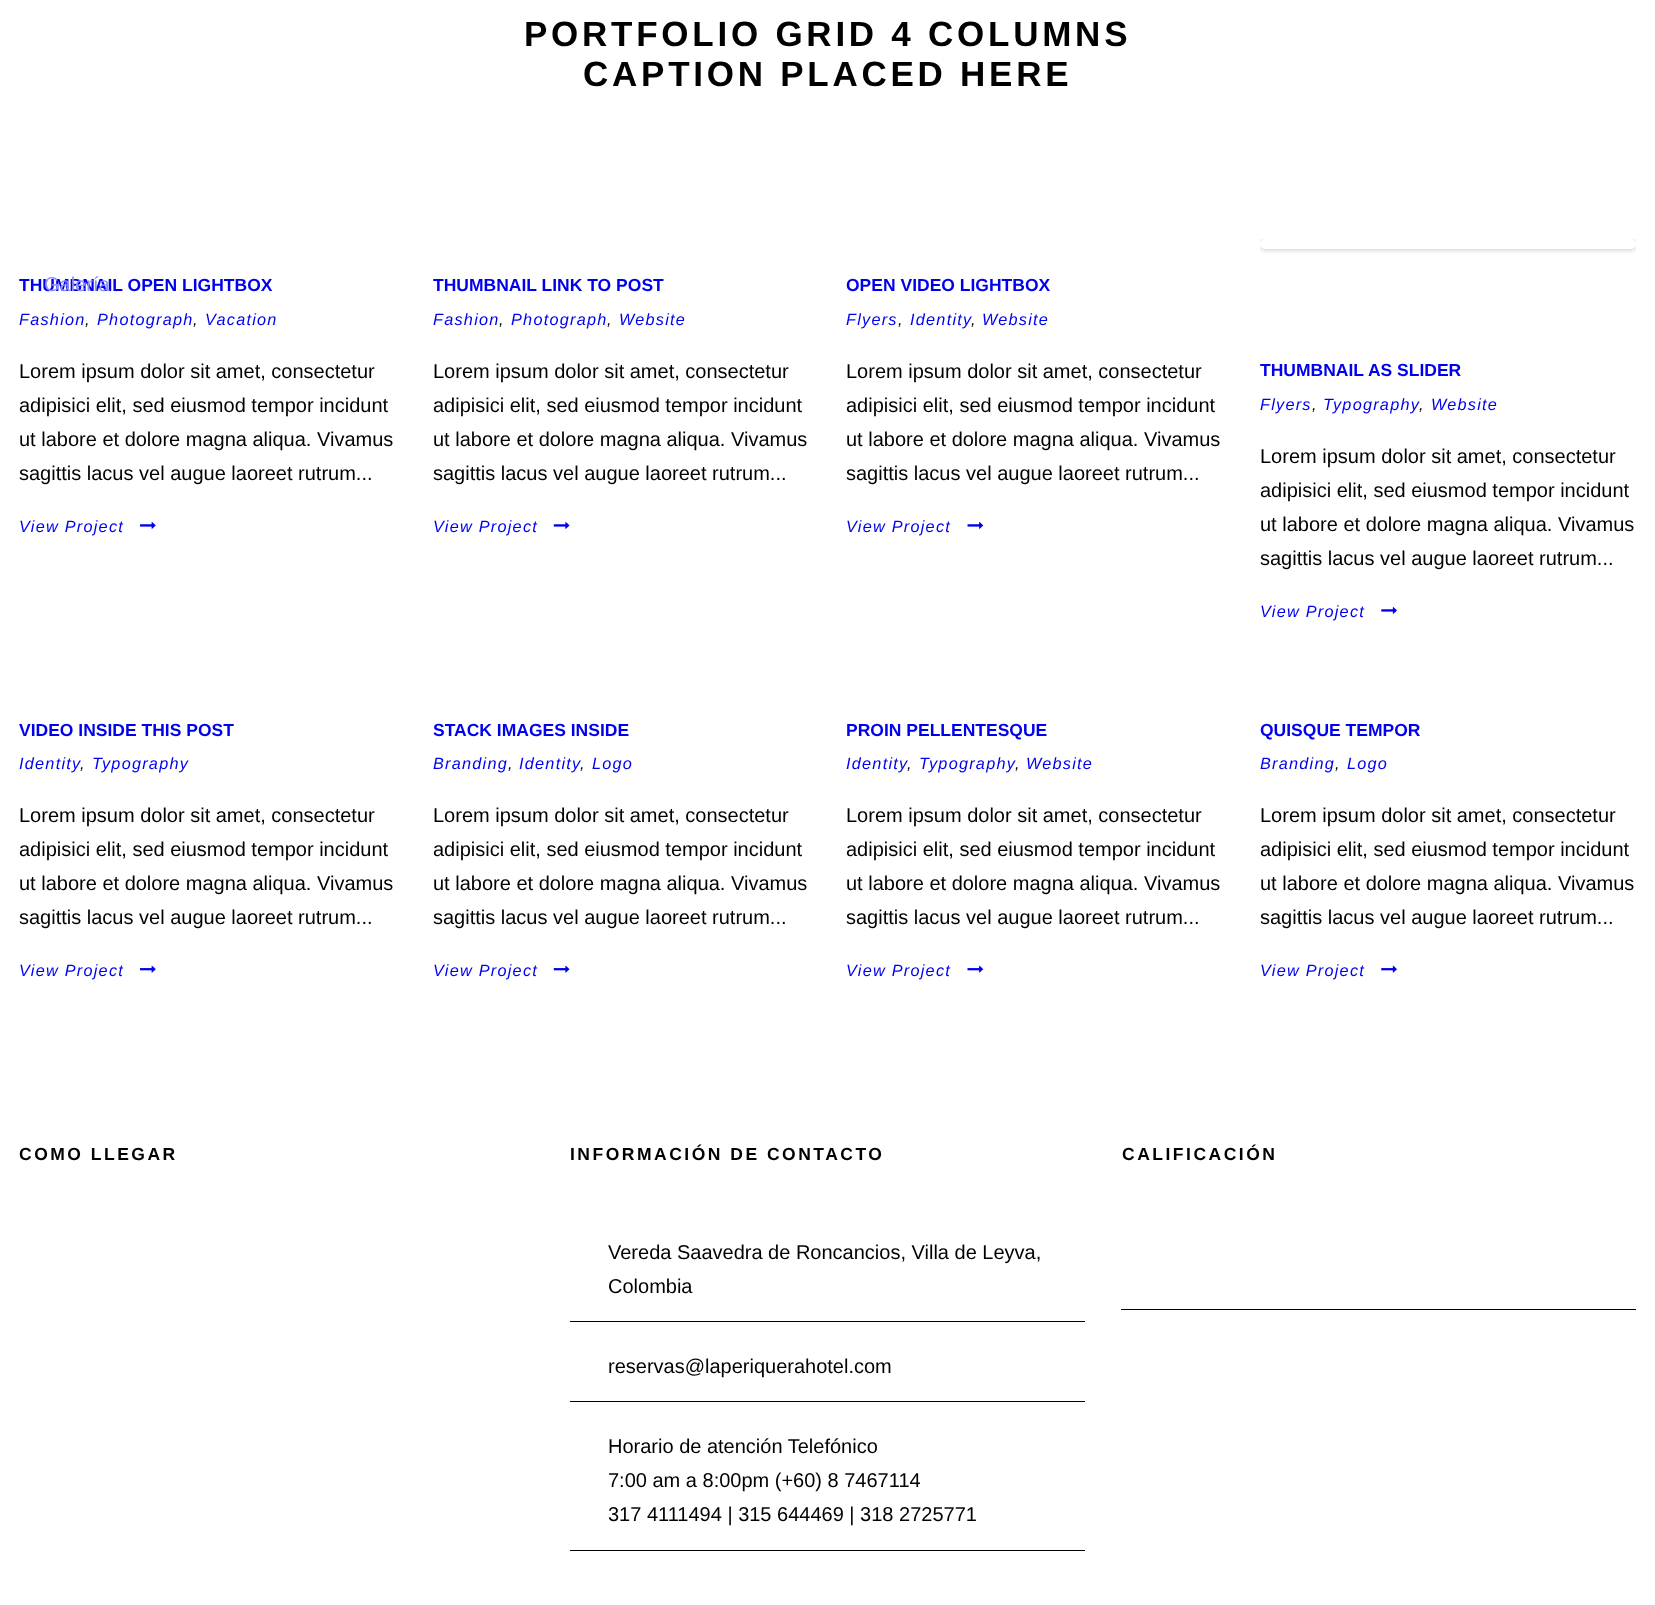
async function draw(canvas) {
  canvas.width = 1655
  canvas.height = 1605
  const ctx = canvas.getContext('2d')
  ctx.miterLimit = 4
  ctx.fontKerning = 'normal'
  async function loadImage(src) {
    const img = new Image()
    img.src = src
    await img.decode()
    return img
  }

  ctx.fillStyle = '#fff'
  ctx.fillRect(0, 0, 1655, 1605)
  ctx.letterSpacing = '3.75px'
  ctx.font = 'bold 35px Liberation Sans'
  ctx.fillStyle = '#000'
  ctx.fillText('PORTFOLIO GRID 4 COLUMNS', 524, 46)
  ctx.fillText('CAPTION PLACED HERE', 583, 86)
  ctx.letterSpacing = '0px'
  ctx.font = 'bold 17.5px Liberation Sans'
  ctx.fillStyle = '#00e'
  ctx.fillText('THUMBNAIL OPEN LIGHTBOX', 19, 291)
  ctx.font = '20px Liberation Sans'
  ctx.fillStyle = '#9191f8'
  ctx.fillText('Galería', 44, 291)
  ctx.letterSpacing = '1.25px'
  ctx.font = 'italic 16.25px Liberation Sans'
  ctx.fillStyle = '#00e'
  ctx.fillText('Fashion', 19, 325)
  ctx.fillStyle = '#000'
  ctx.fillText(',', 85, 325)
  ctx.fillStyle = '#00e'
  ctx.fillText('Photograph', 97, 325)
  ctx.fillStyle = '#000'
  ctx.fillText(',', 193, 325)
  ctx.fillStyle = '#00e'
  ctx.fillText('Vacation', 205, 325)
  ctx.letterSpacing = '0px'
  ctx.font = '20px Liberation Sans'
  ctx.fillStyle = '#000'
  ctx.fillText('Lorem ipsum dolor sit amet, consectetur', 19, 378)
  ctx.fillText('adipisici elit, sed eiusmod tempor incidunt', 19, 412)
  ctx.fillText('ut labore et dolore magna aliqua. Vivamus', 19, 446)
  ctx.fillText('sagittis lacus vel augue laoreet rutrum...', 19, 480)
  ctx.letterSpacing = '1.25px'
  ctx.font = 'italic 16.25px Liberation Sans'
  ctx.fillStyle = '#00e'
  ctx.fillText('View Project', 19, 532)
  ctx.drawImage(await loadImage('image0.png'), 140, 522, 16, 7)
  ctx.letterSpacing = '0px'
  ctx.font = 'bold 17.5px Liberation Sans'
  ctx.fillText('THUMBNAIL LINK TO POST', 433, 291)
  ctx.letterSpacing = '1.25px'
  ctx.font = 'italic 16.25px Liberation Sans'
  ctx.fillText('Fashion', 433, 325)
  ctx.fillStyle = '#000'
  ctx.fillText(',', 499, 325)
  ctx.fillStyle = '#00e'
  ctx.fillText('Photograph', 511, 325)
  ctx.fillStyle = '#000'
  ctx.fillText(',', 607, 325)
  ctx.fillStyle = '#00e'
  ctx.fillText('Website', 619, 325)
  ctx.letterSpacing = '0px'
  ctx.font = '20px Liberation Sans'
  ctx.fillStyle = '#000'
  ctx.fillText('Lorem ipsum dolor sit amet, consectetur', 433, 378)
  ctx.fillText('adipisici elit, sed eiusmod tempor incidunt', 433, 412)
  ctx.fillText('ut labore et dolore magna aliqua. Vivamus', 433, 446)
  ctx.fillText('sagittis lacus vel augue laoreet rutrum...', 433, 480)
  ctx.letterSpacing = '1.25px'
  ctx.font = 'italic 16.25px Liberation Sans'
  ctx.fillStyle = '#00e'
  ctx.fillText('View Project', 433, 532)
  ctx.drawImage(await loadImage('image1.png'), 553, 522, 17, 7)
  ctx.letterSpacing = '0px'
  ctx.font = 'bold 17.5px Liberation Sans'
  ctx.fillText('OPEN VIDEO LIGHTBOX', 846, 291)
  ctx.letterSpacing = '1.25px'
  ctx.font = 'italic 16.25px Liberation Sans'
  ctx.fillText('Flyers', 846, 325)
  ctx.fillStyle = '#000'
  ctx.fillText(',', 898, 325)
  ctx.fillStyle = '#00e'
  ctx.fillText('Identity', 910, 325)
  ctx.fillStyle = '#000'
  ctx.fillText(',', 971, 325)
  ctx.fillStyle = '#00e'
  ctx.fillText('Website', 982, 325)
  ctx.letterSpacing = '0px'
  ctx.font = '20px Liberation Sans'
  ctx.fillStyle = '#000'
  ctx.fillText('Lorem ipsum dolor sit amet, consectetur', 846, 378)
  ctx.fillText('adipisici elit, sed eiusmod tempor incidunt', 846, 412)
  ctx.fillText('ut labore et dolore magna aliqua. Vivamus', 846, 446)
  ctx.fillText('sagittis lacus vel augue laoreet rutrum...', 846, 480)
  ctx.letterSpacing = '1.25px'
  ctx.font = 'italic 16.25px Liberation Sans'
  ctx.fillStyle = '#00e'
  ctx.fillText('View Project', 846, 532)
  ctx.drawImage(await loadImage('image2.png'), 967, 522, 17, 7)
  ctx.save()
  ctx.beginPath()
  ctx.rect(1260, 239, 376, 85)
  ctx.clip()
  ctx.fillStyle = '#00000033'
  ctx.filter = 'blur(2.5px)'
  ctx.beginPath()
  ctx.roundRect(1260, 240, 376, 10, 5)
  ctx.fill()
  ctx.filter = 'none'
  ctx.restore()
  ctx.fillStyle = '#fff'
  ctx.beginPath()
  ctx.roundRect(1260, 239, 376, 10, 5)
  ctx.fill()
  ctx.letterSpacing = '0px'
  ctx.font = 'bold 17.5px Liberation Sans'
  ctx.fillStyle = '#00e'
  ctx.fillText('THUMBNAIL AS SLIDER', 1260, 376)
  ctx.letterSpacing = '1.25px'
  ctx.font = 'italic 16.25px Liberation Sans'
  ctx.fillText('Flyers', 1260, 410)
  ctx.fillStyle = '#000'
  ctx.fillText(',', 1312, 410)
  ctx.fillStyle = '#00e'
  ctx.fillText('Typography', 1323, 410)
  ctx.fillStyle = '#000'
  ctx.fillText(',', 1419, 410)
  ctx.fillStyle = '#00e'
  ctx.fillText('Website', 1431, 410)
  ctx.letterSpacing = '0px'
  ctx.font = '20px Liberation Sans'
  ctx.fillStyle = '#000'
  ctx.fillText('Lorem ipsum dolor sit amet, consectetur', 1260, 463)
  ctx.fillText('adipisici elit, sed eiusmod tempor incidunt', 1260, 497)
  ctx.fillText('ut labore et dolore magna aliqua. Vivamus', 1260, 531)
  ctx.fillText('sagittis lacus vel augue laoreet rutrum...', 1260, 565)
  ctx.letterSpacing = '1.25px'
  ctx.font = 'italic 16.25px Liberation Sans'
  ctx.fillStyle = '#00e'
  ctx.fillText('View Project', 1260, 617)
  ctx.drawImage(await loadImage('image3.png'), 1381, 607, 16, 7)
  ctx.letterSpacing = '0px'
  ctx.font = 'bold 17.5px Liberation Sans'
  ctx.fillText('VIDEO INSIDE THIS POST', 19, 736)
  ctx.letterSpacing = '1.25px'
  ctx.font = 'italic 16.25px Liberation Sans'
  ctx.fillText('Identity', 19, 769)
  ctx.fillStyle = '#000'
  ctx.fillText(',', 80, 769)
  ctx.fillStyle = '#00e'
  ctx.fillText('Typography', 92, 769)
  ctx.letterSpacing = '0px'
  ctx.font = '20px Liberation Sans'
  ctx.fillStyle = '#000'
  ctx.fillText('Lorem ipsum dolor sit amet, consectetur', 19, 822)
  ctx.fillText('adipisici elit, sed eiusmod tempor incidunt', 19, 856)
  ctx.fillText('ut labore et dolore magna aliqua. Vivamus', 19, 890)
  ctx.fillText('sagittis lacus vel augue laoreet rutrum...', 19, 924)
  ctx.letterSpacing = '1.25px'
  ctx.font = 'italic 16.25px Liberation Sans'
  ctx.fillStyle = '#00e'
  ctx.fillText('View Project', 19, 976)
  ctx.drawImage(await loadImage('image4.png'), 140, 965, 16, 8)
  ctx.letterSpacing = '0px'
  ctx.font = 'bold 17.5px Liberation Sans'
  ctx.fillText('STACK IMAGES INSIDE', 433, 736)
  ctx.letterSpacing = '1.25px'
  ctx.font = 'italic 16.25px Liberation Sans'
  ctx.fillText('Branding', 433, 769)
  ctx.fillStyle = '#000'
  ctx.fillText(',', 508, 769)
  ctx.fillStyle = '#00e'
  ctx.fillText('Identity', 519, 769)
  ctx.fillText('Logo', 592, 769)
  ctx.fillStyle = '#000'
  ctx.fillText(',', 580, 769)
  ctx.letterSpacing = '0px'
  ctx.font = '20px Liberation Sans'
  ctx.fillText('Lorem ipsum dolor sit amet, consectetur', 433, 822)
  ctx.fillText('adipisici elit, sed eiusmod tempor incidunt', 433, 856)
  ctx.fillText('ut labore et dolore magna aliqua. Vivamus', 433, 890)
  ctx.fillText('sagittis lacus vel augue laoreet rutrum...', 433, 924)
  ctx.letterSpacing = '1.25px'
  ctx.font = 'italic 16.25px Liberation Sans'
  ctx.fillStyle = '#00e'
  ctx.fillText('View Project', 433, 976)
  ctx.drawImage(await loadImage('image5.png'), 553, 965, 17, 8)
  ctx.letterSpacing = '0px'
  ctx.font = 'bold 17.5px Liberation Sans'
  ctx.fillText('PROIN PELLENTESQUE', 846, 736)
  ctx.letterSpacing = '1.25px'
  ctx.font = 'italic 16.25px Liberation Sans'
  ctx.fillText('Identity', 846, 769)
  ctx.fillText('Typography', 919, 769)
  ctx.fillText('Website', 1026, 769)
  ctx.fillStyle = '#000'
  ctx.fillText(',', 907, 769)
  ctx.fillText(',', 1015, 769)
  ctx.letterSpacing = '0px'
  ctx.font = '20px Liberation Sans'
  ctx.fillText('Lorem ipsum dolor sit amet, consectetur', 846, 822)
  ctx.fillText('adipisici elit, sed eiusmod tempor incidunt', 846, 856)
  ctx.fillText('ut labore et dolore magna aliqua. Vivamus', 846, 890)
  ctx.fillText('sagittis lacus vel augue laoreet rutrum...', 846, 924)
  ctx.letterSpacing = '1.25px'
  ctx.font = 'italic 16.25px Liberation Sans'
  ctx.fillStyle = '#00e'
  ctx.fillText('View Project', 846, 976)
  ctx.drawImage(await loadImage('image6.png'), 967, 965, 17, 8)
  ctx.letterSpacing = '0px'
  ctx.font = 'bold 17.5px Liberation Sans'
  ctx.fillText('QUISQUE TEMPOR', 1260, 736)
  ctx.letterSpacing = '1.25px'
  ctx.font = 'italic 16.25px Liberation Sans'
  ctx.fillText('Branding', 1260, 769)
  ctx.fillStyle = '#000'
  ctx.fillText(',', 1335, 769)
  ctx.fillStyle = '#00e'
  ctx.fillText('Logo', 1347, 769)
  ctx.letterSpacing = '0px'
  ctx.font = '20px Liberation Sans'
  ctx.fillStyle = '#000'
  ctx.fillText('Lorem ipsum dolor sit amet, consectetur', 1260, 822)
  ctx.fillText('adipisici elit, sed eiusmod tempor incidunt', 1260, 856)
  ctx.fillText('ut labore et dolore magna aliqua. Vivamus', 1260, 890)
  ctx.fillText('sagittis lacus vel augue laoreet rutrum...', 1260, 924)
  ctx.letterSpacing = '1.25px'
  ctx.font = 'italic 16.25px Liberation Sans'
  ctx.fillStyle = '#00e'
  ctx.fillText('View Project', 1260, 976)
  ctx.drawImage(await loadImage('image7.png'), 1381, 965, 16, 8)
  ctx.letterSpacing = '2.5px'
  ctx.font = 'bold 17.5px Liberation Sans'
  ctx.fillStyle = '#000'
  ctx.fillText('COMO LLEGAR', 19, 1160)
  ctx.fillText('INFORMACIÓN DE CONTACTO', 570, 1160)
  ctx.fillRect(570, 1321, 515, 1)
  ctx.letterSpacing = '0px'
  ctx.font = '20px Liberation Sans'
  ctx.fillText('Vereda Saavedra de Roncancios, Villa de Leyva,', 608, 1259)
  ctx.fillText('Colombia', 608, 1293)
  ctx.fillRect(570, 1401, 515, 1)
  ctx.fillText('reservas@laperiquerahotel.com', 608, 1373)
  ctx.fillRect(570, 1550, 515, 1)
  ctx.fillText('Horario de atención Telefónico', 608, 1453)
  ctx.fillText('7:00 am a 8:00pm (+60) 8 7467114', 608, 1487)
  ctx.fillText('317 4111494 | 315 644469 | 318 2725771', 608, 1521)
  ctx.letterSpacing = '2.5px'
  ctx.font = 'bold 17.5px Liberation Sans'
  ctx.fillText('CALIFICACIÓN', 1122, 1160)
  ctx.fillRect(1121, 1309, 515, 1)
}

draw(document.querySelector('canvas'))
